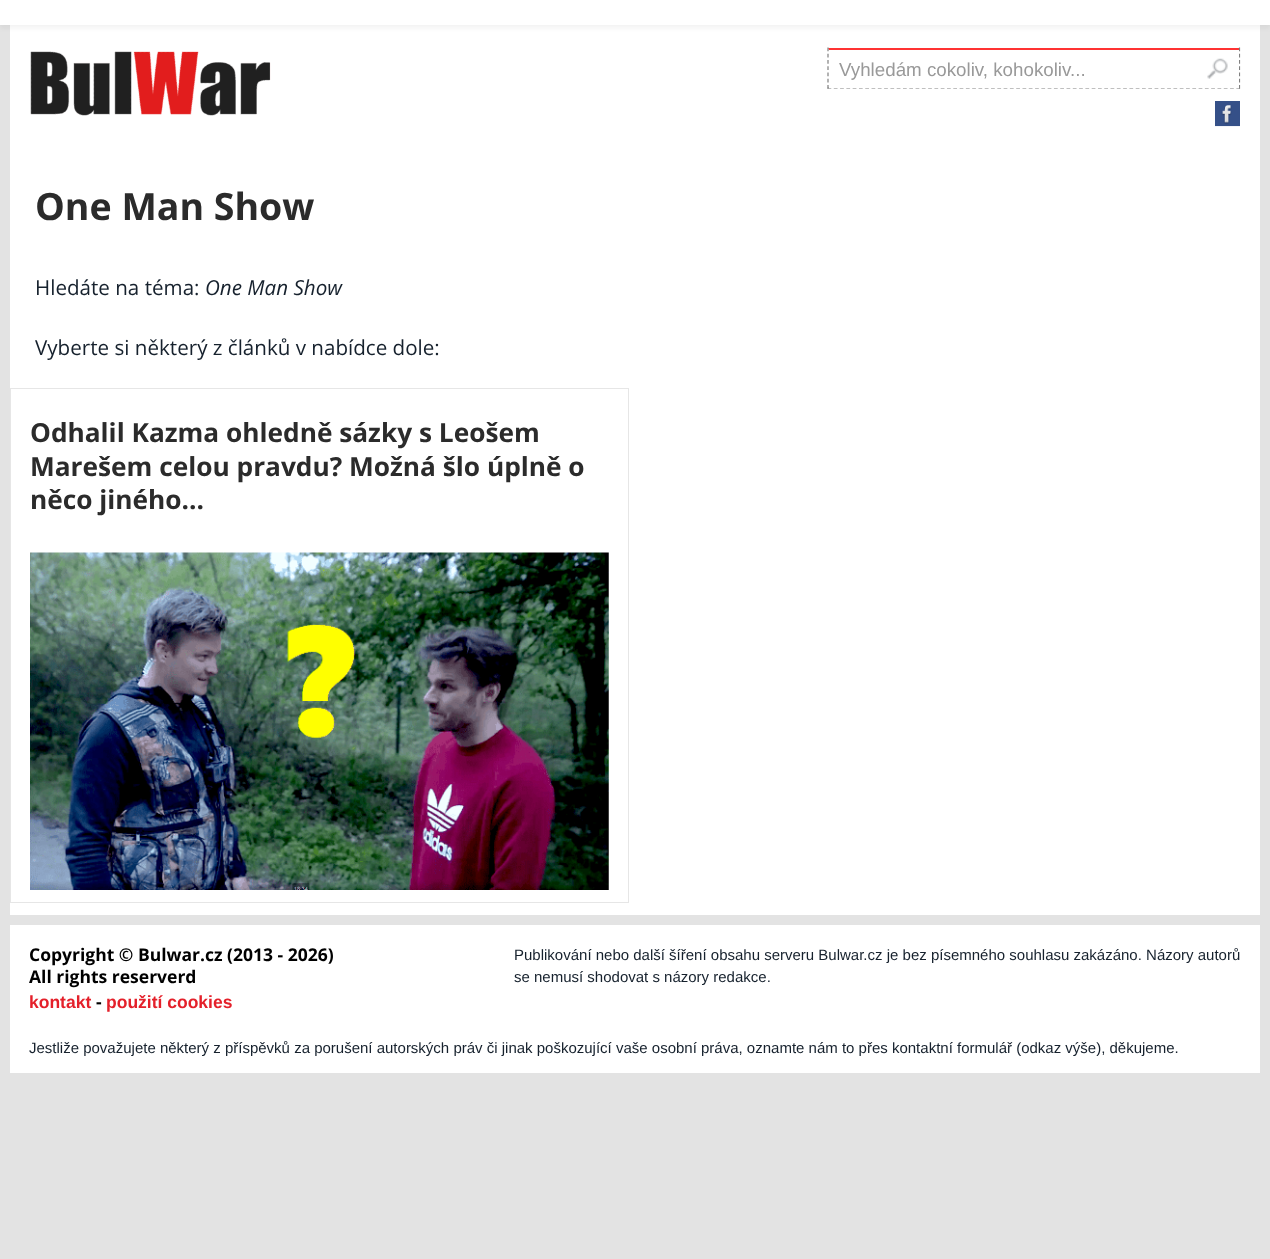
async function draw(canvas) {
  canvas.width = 1270
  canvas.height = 1259
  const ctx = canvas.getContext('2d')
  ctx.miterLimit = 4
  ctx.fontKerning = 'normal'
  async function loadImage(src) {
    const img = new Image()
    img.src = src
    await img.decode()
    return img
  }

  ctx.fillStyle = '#e3e3e3'
  ctx.fillRect(0, 0, 1270, 1259)
  ctx.fillStyle = '#fff'
  ctx.fillRect(10, 25, 1250, 890)
  ctx.fillStyle = '#0000000d'
  ctx.filter = 'blur(2.5px)'
  ctx.beginPath()
  ctx.rect(0, 3, 1270, 25)
  ctx.fill()
  ctx.filter = 'none'
  ctx.fillStyle = '#fff'
  ctx.fillRect(0, 0, 1270, 25)
  ctx.drawImage(await loadImage('image0.png'), 30, 51, 241, 65)
  ctx.fillStyle = '#ff3232'
  ctx.beginPath()
  ctx.moveTo(828, 48)
  ctx.lineTo(1240, 48)
  ctx.lineTo(1239, 50)
  ctx.lineTo(829, 50)
  ctx.closePath()
  ctx.fill()
  ctx.beginPath()
  ctx.moveTo(1239.5, 47.5)
  ctx.lineTo(1239.5, 89)
  ctx.strokeStyle = '#808080'
  ctx.lineWidth = 1.2
  ctx.setLineDash([3.75, 2.5])
  ctx.stroke()
  ctx.beginPath()
  ctx.moveTo(827.5, 88)
  ctx.lineTo(1240, 88)
  ctx.setLineDash([3.75, 2.54])
  ctx.stroke()
  ctx.beginPath()
  ctx.moveTo(828, 47.5)
  ctx.lineTo(828, 89)
  ctx.setLineDash([3.75, 2.5])
  ctx.stroke()
  ctx.fillStyle = '#fff'
  ctx.fillRect(829, 50, 410, 38)
  ctx.font = '18.75px Liberation Sans'
  ctx.fillStyle = '#999'
  ctx.fillText('Vyhledám cokoliv, kohokoliv...', 839, 76)
  ctx.drawImage(await loadImage('image1.png'), 1207, 58, 21, 21)
  ctx.fillStyle = '#355088'
  ctx.fillRect(1215, 101, 25, 4)
  ctx.drawImage(await loadImage('image2.png'), 1215, 105, 25, 22)
  ctx.font = 'bold 37.5px Open Sans'
  ctx.fillStyle = '#2b2b2b'
  ctx.fillText('One Man Show', 35, 220)
  ctx.font = '20.6px Open Sans'
  ctx.fillStyle = '#16212d'
  ctx.fillText('Hledáte na téma:', 35, 295)
  ctx.font = 'italic 20.6px Open Sans'
  ctx.fillText('One Man Show', 205, 295)
  ctx.font = '20.6px Open Sans'
  ctx.fillText('Vyberte si některý z článků v nabídce dole:', 35, 355)
  ctx.strokeStyle = '#e6e6e6'
  ctx.lineWidth = 1
  ctx.setLineDash([])
  ctx.strokeRect(10.5, 388.5, 618, 514)
  ctx.font = 'bold 26.25px Open Sans'
  ctx.fillStyle = '#2b2b2b'
  ctx.fillText('Odhalil Kazma ohledně sázky s Leošem', 30, 442)
  ctx.fillText('Marešem celou pravdu? Možná šlo úplně o', 30, 476)
  ctx.fillText('něco jiného...', 30, 509)
  ctx.drawImage(await loadImage('image3.png'), 30, 552, 579, 338)
  ctx.fillStyle = '#fff'
  ctx.fillRect(10, 925, 1250, 148)
  ctx.font = 'bold 17.5px Open Sans'
  ctx.fillStyle = '#000'
  ctx.fillText('Copyright © Bulwar.cz (2013 - 2026)', 29, 961)
  ctx.fillText('All rights reserverd', 29, 983)
  ctx.font = 'bold 17.5px Liberation Sans'
  ctx.fillStyle = '#e4202a'
  ctx.fillText('kontakt', 29, 1008)
  ctx.font = 'bold 17.5px Open Sans'
  ctx.fillStyle = '#000'
  ctx.fillText('-', 96, 1008)
  ctx.font = 'bold 17.5px Liberation Sans'
  ctx.fillStyle = '#e4202a'
  ctx.fillText('použití cookies', 106, 1008)
  ctx.font = '15px Liberation Sans'
  ctx.fillStyle = '#16212d'
  ctx.fillText('Publikování nebo další šíření obsahu serveru Bulwar.cz je bez písemného souhlasu zakázáno. Názory autorů', 514, 960)
  ctx.fillText('se nemusí shodovat s názory redakce.', 514, 982)
  ctx.fillText('Jestliže považujete některý z příspěvků za porušení autorských práv či jinak poškozující vaše osobní práva, oznamte nám to přes kontaktní formulář (odkaz výše), děkujeme.', 29, 1053)
}

draw(document.querySelector('canvas'))
